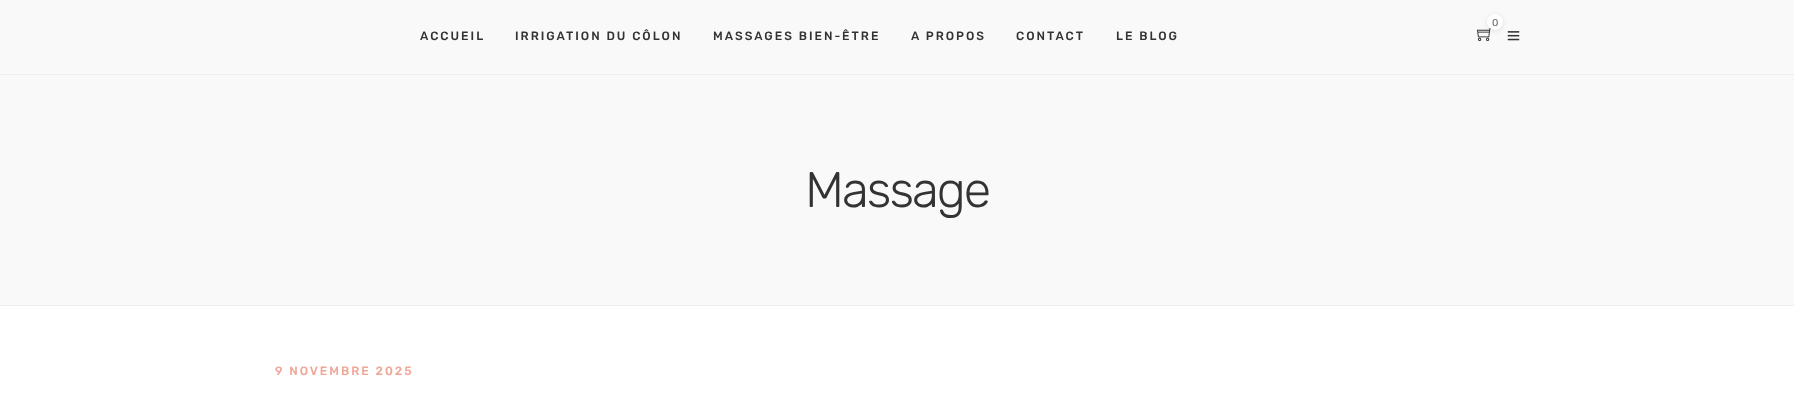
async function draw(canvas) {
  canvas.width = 1794
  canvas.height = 405
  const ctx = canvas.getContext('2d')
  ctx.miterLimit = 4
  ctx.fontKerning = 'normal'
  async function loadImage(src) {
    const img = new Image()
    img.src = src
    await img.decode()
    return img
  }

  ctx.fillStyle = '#fff'
  ctx.fillRect(0, 0, 1794, 405)
  ctx.fillStyle = '#f9f9f9'
  ctx.fillRect(0, 0, 1794, 74)
  ctx.fillStyle = '#eee'
  ctx.fillRect(0, 74, 1794, 1)
  ctx.drawImage(await loadImage('image0.png'), 1477, 27, 15, 14)
  ctx.drawImage(await loadImage('image1.png'), 1507, 31, 13, 10)
  ctx.fillStyle = '#0000001a'
  ctx.filter = 'blur(2.5px)'
  ctx.beginPath()
  ctx.roundRect(1487, 15, 16, 16, 8)
  ctx.fill()
  ctx.filter = 'none'
  ctx.fillStyle = '#fff'
  ctx.beginPath()
  ctx.arc(1495, 22, 8, 0, 2 * Math.PI)
  ctx.fill()
  ctx.font = '10px Rubik'
  ctx.fillStyle = '#666'
  ctx.fillText('0', 1492, 26)
  ctx.letterSpacing = '2px'
  ctx.font = '500 12px Rubik'
  ctx.fillStyle = '#333'
  ctx.fillText('ACCUEIL', 420, 40)
  ctx.fillText('IRRIGATION DU CÔLON', 515, 40)
  ctx.fillText('MASSAGES BIEN-ÊTRE', 713, 40)
  ctx.fillText('A PROPOS', 911, 40)
  ctx.fillText('CONTACT', 1016, 40)
  ctx.fillText('LE BLOG', 1116, 40)
  ctx.fillStyle = '#f9f9f9'
  ctx.fillRect(0, 75, 1794, 230)
  ctx.fillStyle = '#eee'
  ctx.fillRect(0, 305, 1794, 1)
  ctx.letterSpacing = '-2px'
  ctx.font = '300 50px Rubik'
  ctx.fillStyle = '#333'
  ctx.fillText('Massage', 805, 207)
  ctx.letterSpacing = '2px'
  ctx.font = '500 12px Rubik'
  ctx.fillStyle = '#efa697'
  ctx.fillText('9 NOVEMBRE 2025', 275, 375)
}

draw(document.querySelector('canvas'))
